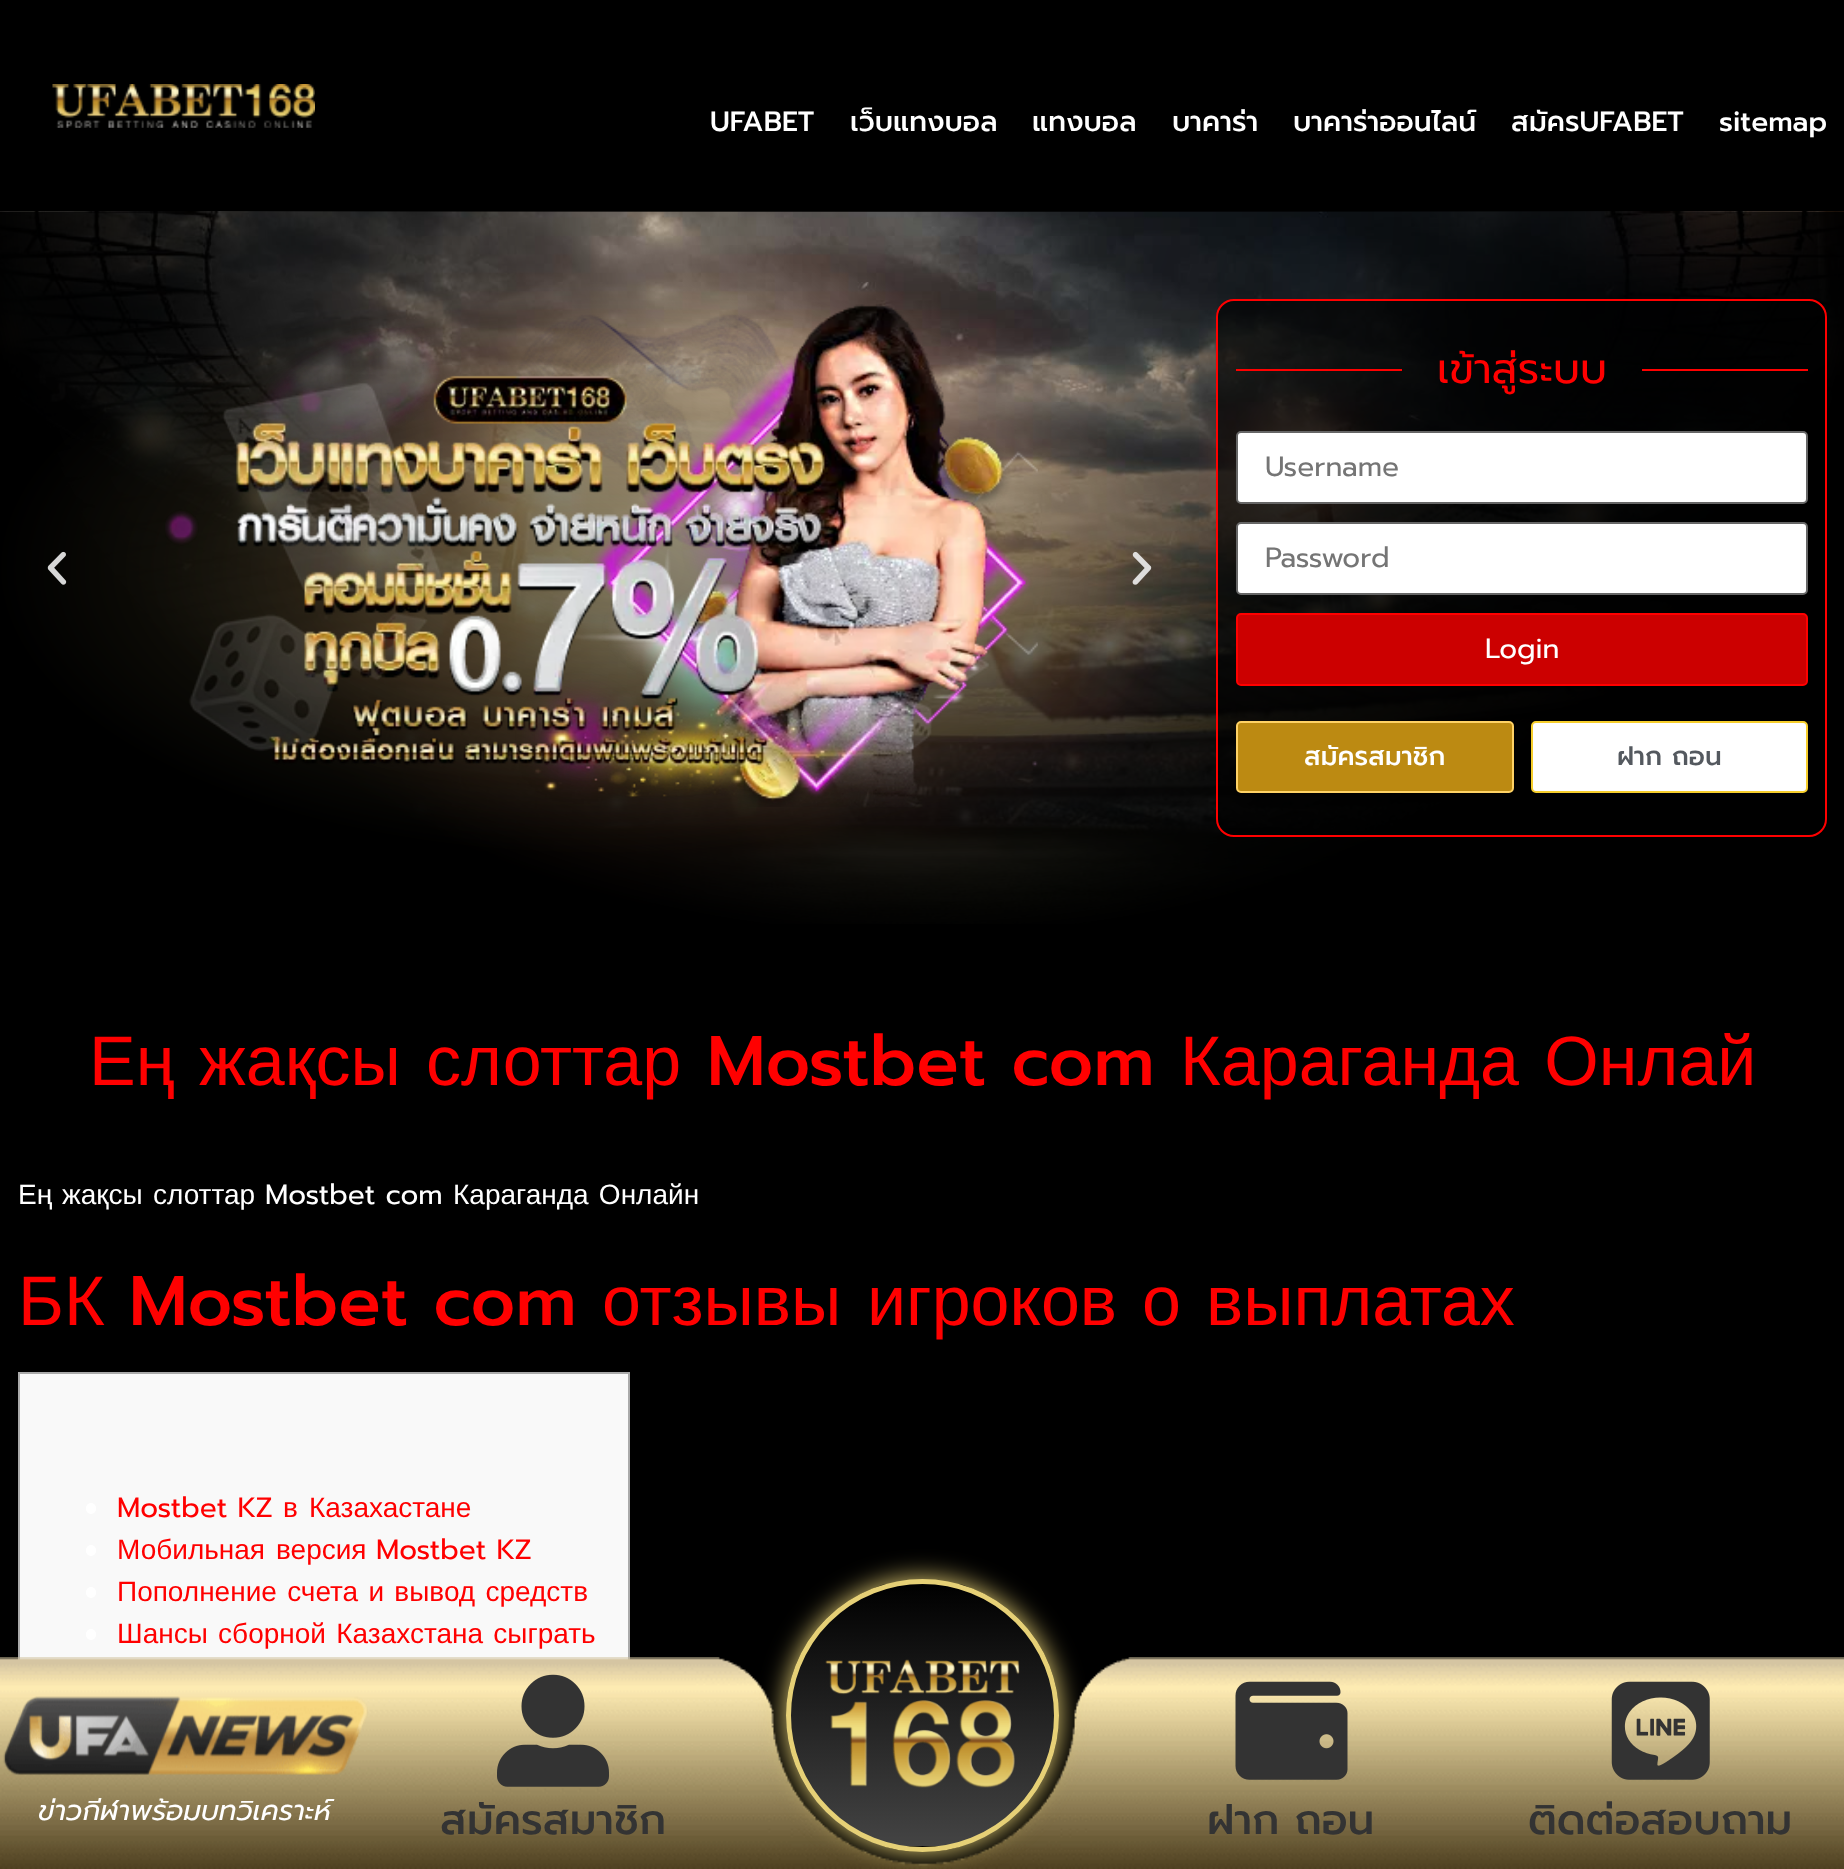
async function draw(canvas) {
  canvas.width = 1844
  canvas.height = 1869
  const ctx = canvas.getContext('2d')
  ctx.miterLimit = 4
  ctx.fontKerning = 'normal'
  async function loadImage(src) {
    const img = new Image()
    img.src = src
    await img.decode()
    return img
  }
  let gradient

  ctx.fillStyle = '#000'
  ctx.fillRect(0, 0, 1844, 1869)
  ctx.drawImage(await loadImage('image0.png'), 52, 84, 263, 44)
  ctx.font = '500 28px Prompt'
  ctx.fillStyle = '#fff'
  ctx.fillText('UFABET', 710, 131)
  ctx.fillText('เว็บแทงบอล', 850, 131)
  ctx.fillText('แทงบอล', 1032, 131)
  ctx.fillText('บาคาร่า', 1172, 131)
  ctx.fillText('บาคาร่าออนไลน์', 1293, 131)
  ctx.fillText('สมัครUFABET', 1511, 131)
  ctx.fillText('sitemap', 1719, 131)
  ctx.drawImage(await loadImage('image1.png'), 0, 211, 1844, 713)
  ctx.drawImage(await loadImage('image2.png'), 47, 551, 20, 34)
  ctx.drawImage(await loadImage('image3.png'), 165, 304, 873, 503)
  ctx.drawImage(await loadImage('image4.png'), 1132, 551, 20, 34)
  ctx.fillStyle = '#000000a6'
  ctx.beginPath()
  ctx.roundRect(1217, 300, 609, 536, 17)
  ctx.fill()
  ctx.strokeStyle = '#f00'
  ctx.lineWidth = 2
  ctx.stroke()
  ctx.fillStyle = '#f00'
  ctx.fillRect(1236, 369, 166, 2)
  ctx.font = '42px Prompt'
  ctx.fillText('เข้าสู่ระบบ', 1437, 383)
  ctx.fillRect(1642, 369, 166, 2)
  ctx.fillStyle = '#fff'
  ctx.beginPath()
  ctx.roundRect(1237, 432, 570, 71, 4)
  ctx.fill()
  ctx.strokeStyle = '#666'
  ctx.stroke()
  ctx.font = '28px Prompt'
  ctx.fillStyle = '#757575'
  ctx.fillText('Username', 1265, 476)
  ctx.fillStyle = '#fff'
  ctx.beginPath()
  ctx.roundRect(1237, 523, 570, 71, 4)
  ctx.fill()
  ctx.stroke()
  ctx.fillStyle = '#757575'
  ctx.fillText('Password', 1265, 567)
  ctx.fillStyle = '#c00'
  ctx.beginPath()
  ctx.roundRect(1237, 614, 570, 71, 4)
  ctx.fill()
  ctx.strokeStyle = '#f00'
  ctx.stroke()
  ctx.fillStyle = '#fff'
  ctx.fillText('Login', 1485, 658)
  ctx.fillStyle = '#bc8a12'
  ctx.beginPath()
  ctx.roundRect(1237, 722, 276, 70, 4)
  ctx.fill()
  ctx.strokeStyle = '#ffd265'
  ctx.stroke()
  ctx.font = '500 26.25px Prompt'
  ctx.fillStyle = '#fff'
  ctx.fillText('สมัครสมาชิก', 1304, 765)
  ctx.beginPath()
  ctx.roundRect(1532, 722, 275, 70, 4)
  ctx.fill()
  ctx.strokeStyle = '#f6ce2c'
  ctx.stroke()
  ctx.fillStyle = '#54595f'
  ctx.fillText('ฝาก ถอน', 1617, 765)
  ctx.font = '70px Liberation Sans'
  ctx.fillStyle = '#f00'
  ctx.fillText('Ең', 89, 1085)
  ctx.fillText('жақсы', 199, 1085)
  ctx.fillText('слоттар', 426, 1085)
  ctx.font = '500 70px Prompt'
  ctx.fillText('Mostbet com', 707, 1085)
  ctx.wordSpacing = '6px'
  ctx.font = '70px Liberation Sans'
  ctx.fillText('Караганда Онлай', 1180, 1085)
  ctx.wordSpacing = '0px'
  ctx.font = '28px Liberation Sans'
  ctx.fillStyle = '#fff'
  ctx.fillText('Ең', 18, 1204)
  ctx.fillText('жақсы', 62, 1204)
  ctx.fillText('слоттар', 153, 1204)
  ctx.font = '28px Prompt'
  ctx.fillText('Mostbet com', 265, 1204)
  ctx.wordSpacing = '2.5px'
  ctx.font = '28px Liberation Sans'
  ctx.fillText('Караганда Онлайн', 453, 1204)
  ctx.wordSpacing = '0px'
  ctx.font = '70px Liberation Sans'
  ctx.fillStyle = '#f00'
  ctx.fillText('БК', 18, 1325)
  ctx.font = '500 70px Prompt'
  ctx.fillText('Mostbet com', 129, 1325)
  ctx.font = '70px Liberation Sans'
  ctx.fillText('отзывы', 602, 1325)
  ctx.fillText('игроков', 867, 1325)
  ctx.fillText('о', 1142, 1325)
  ctx.fillText('выплатах', 1206, 1325)
  ctx.fillStyle = '#f9f9f9'
  ctx.fillRect(20, 1374, 608, 286)
  ctx.strokeStyle = '#aaa'
  ctx.strokeRect(19, 1373, 610, 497)
  ctx.fillStyle = '#fff'
  ctx.beginPath()
  ctx.roundRect(86, 1503, 10, 11, 5)
  ctx.fill()
  ctx.font = '28px Prompt'
  ctx.fillStyle = '#f00'
  ctx.fillText('Mostbet KZ', 117, 1517)
  ctx.font = '28px Liberation Sans'
  ctx.fillText('в', 283, 1517)
  ctx.fillText('Казахастане', 309, 1517)
  ctx.fillStyle = '#fff'
  ctx.beginPath()
  ctx.roundRect(86, 1545, 10, 11, 5)
  ctx.fill()
  ctx.fillStyle = '#f00'
  ctx.fillText('Мобильная', 117, 1559)
  ctx.fillText('версия', 276, 1559)
  ctx.font = '28px Prompt'
  ctx.fillText('Mostbet KZ', 376, 1559)
  ctx.fillStyle = '#fff'
  ctx.beginPath()
  ctx.roundRect(86, 1587, 10, 11, 5)
  ctx.fill()
  ctx.wordSpacing = '2.5px'
  ctx.font = '28px Liberation Sans'
  ctx.fillStyle = '#f00'
  ctx.fillText('Пополнение счета и вывод средств', 117, 1601)
  ctx.fillStyle = '#fff'
  ctx.beginPath()
  ctx.roundRect(86, 1629, 10, 11, 5)
  ctx.fill()
  ctx.fillStyle = '#f00'
  ctx.fillText('Шансы сборной Казахстана сыграть', 117, 1643)
  ctx.drawImage(await loadImage('image5.png'), 0, 1657, 1844, 212)
  ctx.drawImage(await loadImage('image6.png'), 3, 1696, 365, 79)
  ctx.wordSpacing = '0px'
  ctx.font = 'italic 28px Prompt'
  ctx.fillStyle = '#fff'
  ctx.fillText('ข่าวกีฬาพร้อมบทวิเคราะห์', 38, 1820)
  ctx.drawImage(await loadImage('image7.png'), 497, 1674, 112, 113)
  ctx.font = '500 42px Prompt'
  ctx.fillStyle = '#333'
  ctx.fillText('สมัครสมาชิก', 440, 1834)
  ctx.fillStyle = '#e6d076'
  ctx.filter = 'blur(13px)'
  ctx.beginPath()
  ctx.roundRect(786, 1579, 273, 273, 136.5)
  ctx.fill()
  ctx.filter = 'none'
  ctx.save()
  ctx.beginPath()
  ctx.roundRect(786, 1579, 273, 273, 136.5)
  ctx.clip()
  gradient = ctx.createLinearGradient(922, 1584, 922, 1846)
  gradient.addColorStop(0, '#000')
  gradient.addColorStop(1, '#444')
  ctx.fillStyle = gradient
  ctx.fillRect(786, 1584, 273, 262)
  gradient = ctx.createLinearGradient(922, 1846, 922, 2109)
  gradient.addColorStop(0, '#000')
  gradient.addColorStop(1, '#444')
  ctx.fillStyle = gradient
  ctx.fillRect(882, 1846, 81, 6)
  ctx.restore()
  ctx.beginPath()
  ctx.arc(922.5, 1715.5, 134, 0, 2 * Math.PI)
  ctx.strokeStyle = '#e6d076'
  ctx.lineWidth = 5
  ctx.stroke()
  ctx.drawImage(await loadImage('image8.png'), 825, 1659, 195, 129)
  ctx.drawImage(await loadImage('image9.png'), 1235, 1681, 113, 99)
  ctx.fillStyle = '#333'
  ctx.fillText('ฝาก ถอน', 1207, 1834)
  ctx.drawImage(await loadImage('image10.png'), 1611, 1681, 99, 99)
  ctx.fillText('ติดต่อสอบถาม', 1528, 1834)
}

draw(document.querySelector('canvas'))
